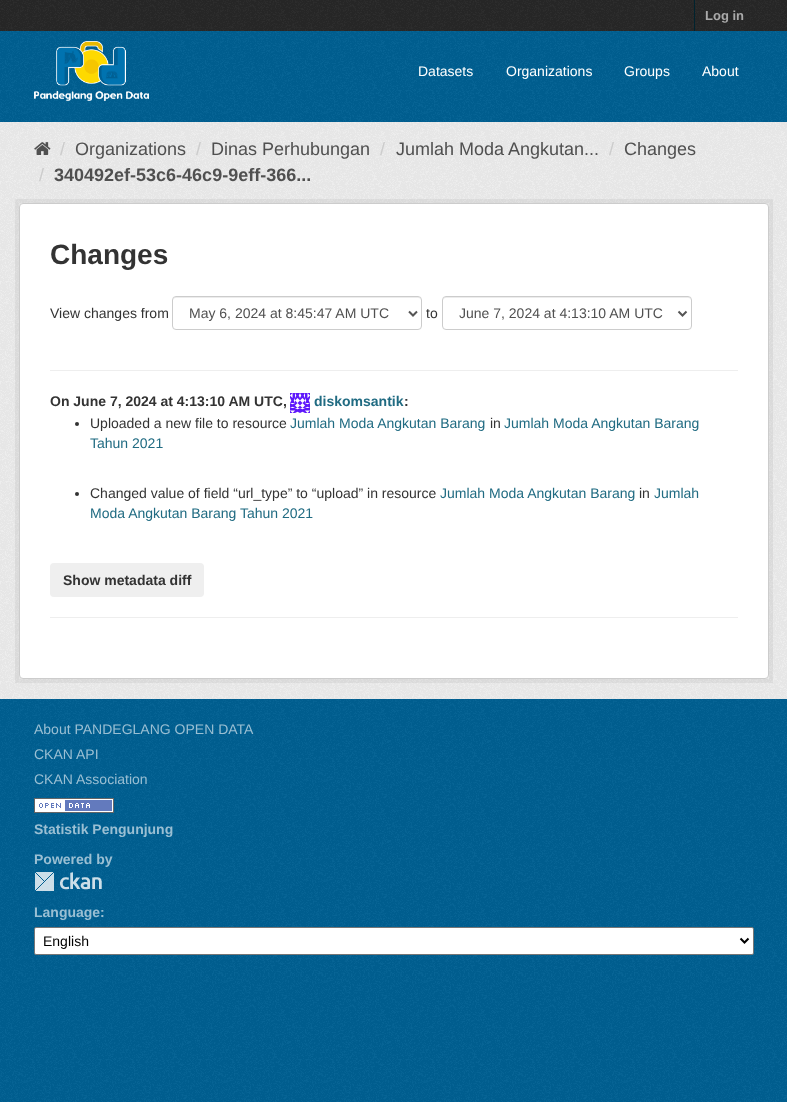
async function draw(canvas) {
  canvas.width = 787
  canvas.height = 1102
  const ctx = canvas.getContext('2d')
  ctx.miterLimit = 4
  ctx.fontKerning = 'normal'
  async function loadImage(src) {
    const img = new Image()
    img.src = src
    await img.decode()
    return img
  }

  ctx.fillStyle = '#006093'
  ctx.fillRect(0, 0, 787, 1102)
  ctx.drawImage(await loadImage('image0.png'), 0, 975, 787, 127)
  ctx.fillStyle = '#282828'
  ctx.fillRect(0, 0, 787, 31)
  ctx.drawImage(await loadImage('image1.png'), 0, 0, 787, 31)
  ctx.fillStyle = '#00232e'
  ctx.fillRect(694, 0, 1, 31)
  ctx.font = 'bold 13px Liberation Sans'
  ctx.fillStyle = '#a9a9a9'
  ctx.fillText('Log in', 705, 20)
  ctx.drawImage(await loadImage('image2.png'), 0, 31, 787, 91)
  ctx.drawImage(await loadImage('image3.png'), 34, 41, 115, 60)
  ctx.font = '14px Liberation Sans'
  ctx.fillStyle = '#fff'
  ctx.fillText('Datasets', 418, 76)
  ctx.fillText('Organizations', 506, 76)
  ctx.fillText('Groups', 624, 76)
  ctx.fillText('About', 702, 76)
  ctx.fillStyle = '#eee'
  ctx.fillRect(0, 122, 787, 577)
  ctx.drawImage(await loadImage('image4.png'), 0, 122, 787, 577)
  ctx.drawImage(await loadImage('image5.png'), 34, 142, 17, 13)
  ctx.font = '18px Liberation Sans'
  ctx.fillStyle = '#ccc'
  ctx.fillText('/', 60, 155)
  ctx.fillStyle = '#505050'
  ctx.fillText('Organizations', 75, 155)
  ctx.fillStyle = '#ccc'
  ctx.fillText('/', 196, 155)
  ctx.fillStyle = '#505050'
  ctx.fillText('Dinas Perhubungan', 211, 155)
  ctx.fillStyle = '#ccc'
  ctx.fillText('/', 380, 155)
  ctx.fillStyle = '#505050'
  ctx.fillText('Jumlah Moda Angkutan...', 396, 155)
  ctx.fillStyle = '#ccc'
  ctx.fillText('/', 609, 155)
  ctx.fillStyle = '#505050'
  ctx.fillText('Changes', 624, 155)
  ctx.fillStyle = '#ccc'
  ctx.fillText('/', 39, 181)
  ctx.font = 'bold 18px Liberation Sans'
  ctx.fillStyle = '#505050'
  ctx.fillText('340492ef-53c6-46c9-9eff-366...', 54, 181)
  ctx.strokeStyle = '#0000000d'
  ctx.lineWidth = 4
  ctx.strokeRect(17, 201, 754, 480)
  ctx.fillStyle = '#fff'
  ctx.beginPath()
  ctx.roundRect(19.5, 203.5, 749, 475, 3.5)
  ctx.fill()
  ctx.strokeStyle = '#ccc'
  ctx.lineWidth = 1
  ctx.stroke()
  ctx.font = 'bold 28px Liberation Sans'
  ctx.fillStyle = '#333'
  ctx.fillText('Changes', 50, 264)
  ctx.font = '14px Liberation Sans'
  ctx.fillText('View changes from', 50, 318)
  ctx.fillStyle = '#ececec'
  ctx.beginPath()
  ctx.moveTo(176, 298)
  ctx.lineTo(418, 298)
  ctx.bezierCurveTo(420, 298, 421, 299, 421, 301)
  ctx.bezierCurveTo(421, 299, 420, 297, 418, 297)
  ctx.lineTo(176, 297)
  ctx.bezierCurveTo(174, 297, 173, 299, 173, 301)
  ctx.bezierCurveTo(173, 299, 174, 298, 176, 298)
  ctx.closePath()
  ctx.fill()
  ctx.beginPath()
  ctx.roundRect(172.5, 296.5, 249, 33, 3.5)
  ctx.stroke()
  ctx.beginPath()
  ctx.moveTo(409, 311.5)
  ctx.lineTo(413, 315.5)
  ctx.lineTo(417, 311.5)
  ctx.strokeStyle = '#555'
  ctx.lineWidth = 2
  ctx.stroke()
  ctx.fillStyle = '#505050'
  ctx.fillText('May 6, 2024 at 8:45:47 AM UTC', 189, 318)
  ctx.fillStyle = '#333'
  ctx.fillText('to', 426, 318)
  ctx.fillStyle = '#ececec'
  ctx.beginPath()
  ctx.moveTo(446, 298)
  ctx.lineTo(688, 298)
  ctx.bezierCurveTo(690, 298, 691, 299, 691, 301)
  ctx.bezierCurveTo(691, 299, 690, 297, 688, 297)
  ctx.lineTo(446, 297)
  ctx.bezierCurveTo(444, 297, 443, 299, 443, 301)
  ctx.bezierCurveTo(443, 299, 444, 298, 446, 298)
  ctx.closePath()
  ctx.fill()
  ctx.beginPath()
  ctx.roundRect(442.5, 296.5, 249, 33, 3.5)
  ctx.strokeStyle = '#ccc'
  ctx.lineWidth = 1
  ctx.stroke()
  ctx.beginPath()
  ctx.moveTo(678.5, 311.5)
  ctx.lineTo(682.5, 315.5)
  ctx.lineTo(686.5, 311.5)
  ctx.strokeStyle = '#555'
  ctx.lineWidth = 2
  ctx.stroke()
  ctx.fillStyle = '#505050'
  ctx.fillText('June 7, 2024 at 4:13:10 AM UTC', 459, 318)
  ctx.fillStyle = '#eee'
  ctx.fillRect(50, 370, 688, 1)
  ctx.font = 'bold 14px Liberation Sans'
  ctx.fillStyle = '#333'
  ctx.fillText('On June 7, 2024 at 4:13:10 AM UTC,', 50, 406)
  ctx.drawImage(await loadImage('image6.png'), 290, 393, 20, 20)
  ctx.fillStyle = '#206b82'
  ctx.fillText('diskomsantik', 314, 406)
  ctx.fillStyle = '#333'
  ctx.fillText(':', 404, 406)
  ctx.beginPath()
  ctx.arc(77, 424, 2, 0, 2 * Math.PI)
  ctx.fill()
  ctx.font = '14px Liberation Sans'
  ctx.fillText('Uploaded a new file to resource', 90, 428)
  ctx.fillStyle = '#206b82'
  ctx.fillText('Jumlah Moda Angkutan Barang', 290, 428)
  ctx.fillStyle = '#333'
  ctx.fillText('in', 490, 428)
  ctx.fillStyle = '#206b82'
  ctx.fillText('Jumlah Moda Angkutan Barang', 504, 428)
  ctx.fillText('Tahun 2021', 90, 448)
  ctx.fillStyle = '#333'
  ctx.beginPath()
  ctx.arc(77, 494, 2, 0, 2 * Math.PI)
  ctx.fill()
  ctx.fillText('Changed value of field “url_type” to “upload” in resource', 90, 498)
  ctx.fillStyle = '#206b82'
  ctx.fillText('Jumlah Moda Angkutan Barang', 440, 498)
  ctx.fillStyle = '#333'
  ctx.fillText('in', 639, 498)
  ctx.fillStyle = '#206b82'
  ctx.fillText('Jumlah', 654, 498)
  ctx.fillText('Moda Angkutan Barang Tahun 2021', 90, 518)
  ctx.fillStyle = '#efefef'
  ctx.beginPath()
  ctx.roundRect(50, 563, 154, 34, 4)
  ctx.fill()
  ctx.font = 'bold 14px Liberation Sans'
  ctx.fillStyle = '#333'
  ctx.fillText('Show metadata diff', 63, 585)
  ctx.fillStyle = '#eee'
  ctx.fillRect(50, 617, 688, 1)
  ctx.drawImage(await loadImage('image7.png'), 0, 699, 787, 276)
  ctx.font = '14px Liberation Sans'
  ctx.fillStyle = '#9abfd3'
  ctx.fillText('About PANDEGLANG OPEN DATA', 34, 734)
  ctx.fillText('CKAN API', 34, 759)
  ctx.fillText('CKAN Association', 34, 784)
  ctx.drawImage(await loadImage('image8.png'), 34, 798, 80, 15)
  ctx.font = 'bold 14px Liberation Sans'
  ctx.fillText('Statistik Pengunjung', 34, 834)
  ctx.fillText('Powered by', 34, 864)
  ctx.drawImage(await loadImage('image9.png'), 35, 872, 67, 19)
  ctx.fillText('Language', 34, 917)
  ctx.fillText(':', 100, 917)
  ctx.fillStyle = '#fff'
  ctx.beginPath()
  ctx.roundRect(34.5, 927.5, 719, 27, 1.5)
  ctx.fill()
  ctx.strokeStyle = '#767676'
  ctx.lineWidth = 1
  ctx.stroke()
  ctx.beginPath()
  ctx.moveTo(740.5, 938.5)
  ctx.lineTo(744.5, 942.5)
  ctx.lineTo(748.5, 938.5)
  ctx.strokeStyle = '#000'
  ctx.lineWidth = 2
  ctx.stroke()
  ctx.font = '14px Liberation Sans'
  ctx.fillStyle = '#000'
  ctx.fillText('English', 43, 946)
}

draw(document.querySelector('canvas'))
